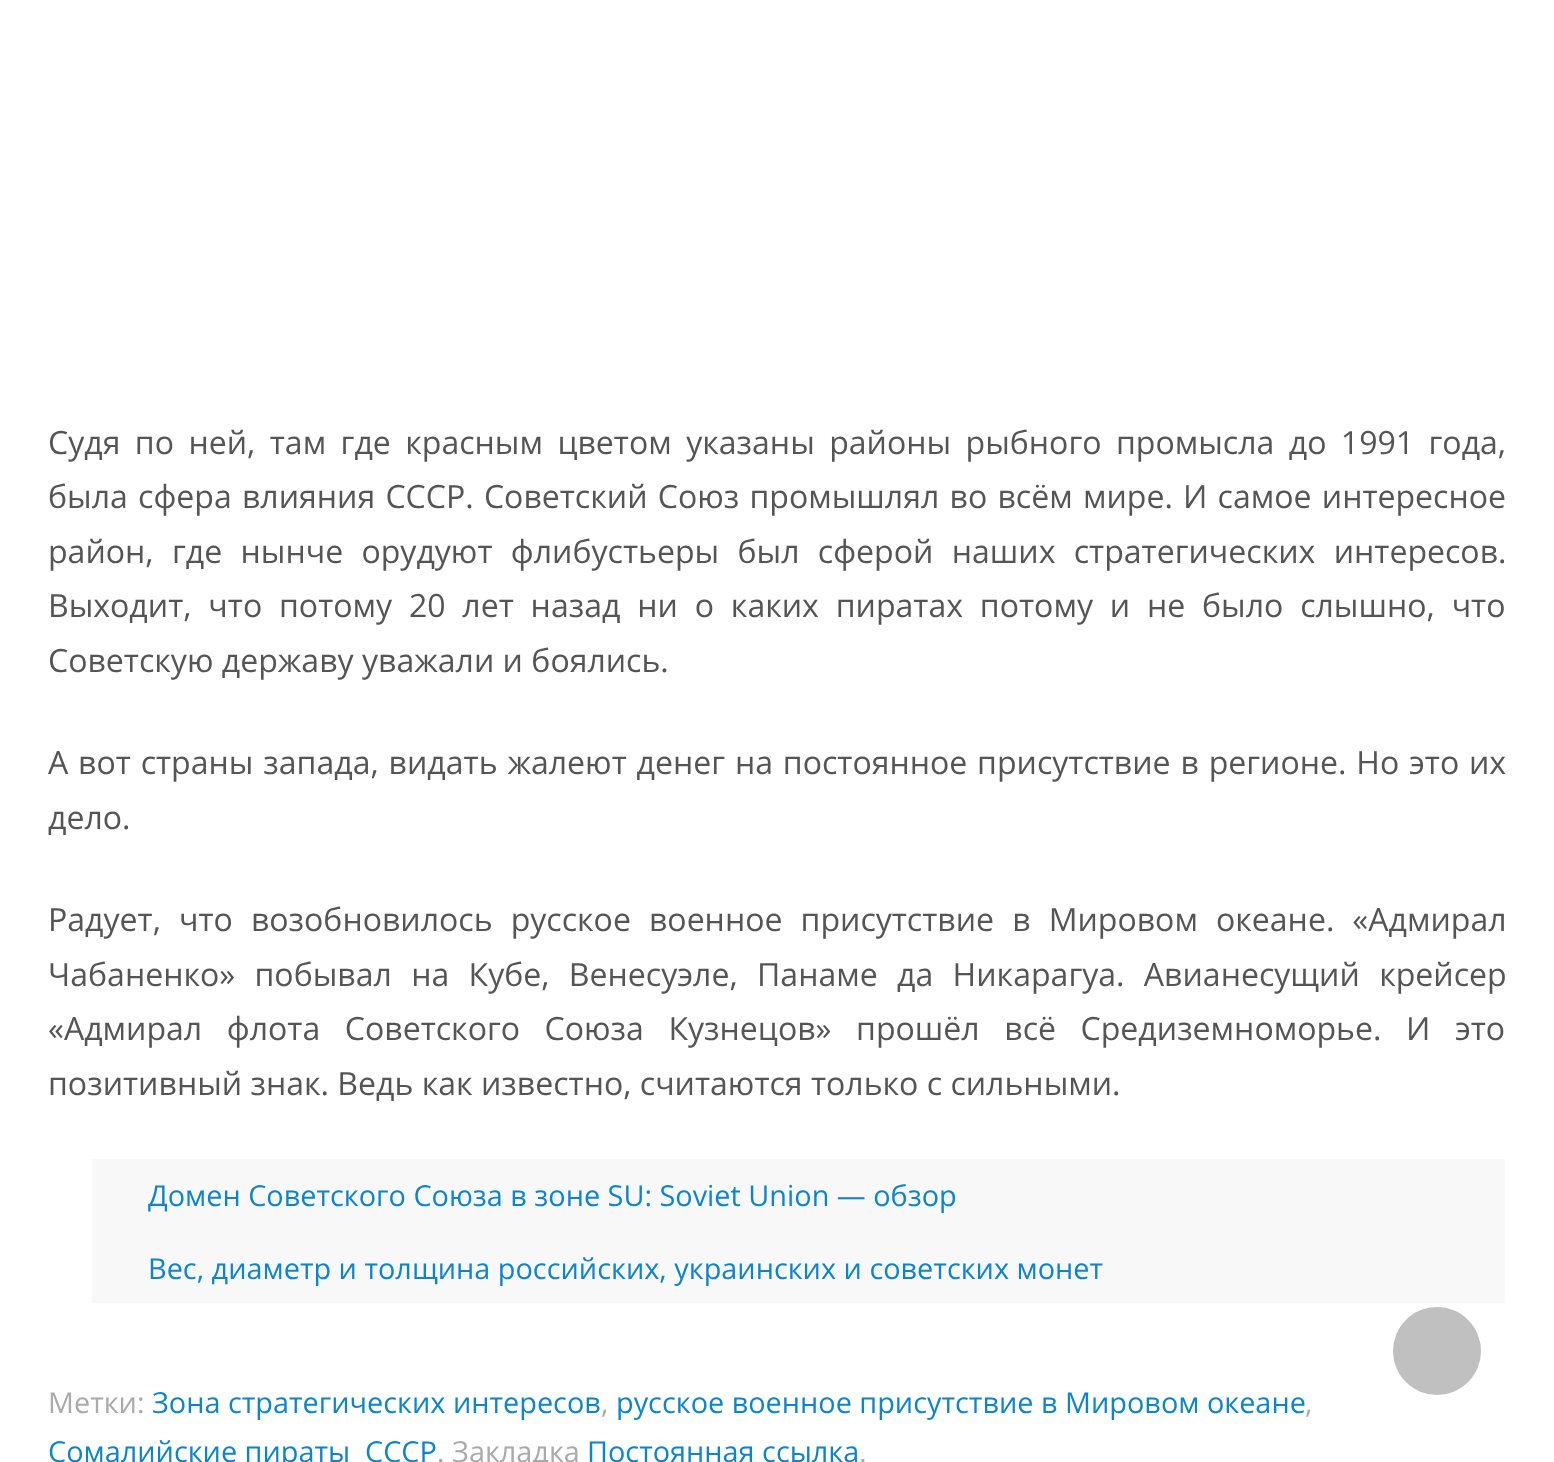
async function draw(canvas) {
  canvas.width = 1554
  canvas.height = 1462
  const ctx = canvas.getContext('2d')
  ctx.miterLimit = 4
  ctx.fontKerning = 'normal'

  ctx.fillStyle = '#fff'
  ctx.fillRect(0, 0, 1554, 1462)
  ctx.wordSpacing = '6.1px'
  ctx.font = '32.05px Open Sans'
  ctx.fillStyle = '#555'
  ctx.fillText('Судя по ней, там где красным цветом указаны районы рыбного промысла до 1991 года,', 48, 454)
  ctx.wordSpacing = '1.9px'
  ctx.fillText('была сфера влияния СССР. Советский Союз промышлял во всём мире. И самое интересное', 48, 508)
  ctx.wordSpacing = '10px'
  ctx.fillText('район, где нынче орудуют флибустьеры был сферой наших стратегических интересов.', 48, 563)
  ctx.wordSpacing = '8.5px'
  ctx.fillText('Выходит, что потому 20 лет назад ни о каких пиратах потому и не было слышно, что', 48, 617)
  ctx.wordSpacing = '0px'
  ctx.fillText('Советскую державу уважали и боялись.', 48, 672)
  ctx.wordSpacing = '1.5px'
  ctx.fillText('А вот страны запада, видать жалеют денег на постоянное присутствие в регионе. Но это их', 48, 774)
  ctx.wordSpacing = '0px'
  ctx.fillText('дело.', 48, 829)
  ctx.wordSpacing = '9.75px'
  ctx.fillText('Радует, что возобновилось русское военное присутствие в Мировом океане. «Адмирал', 48, 931)
  ctx.wordSpacing = '11px'
  ctx.fillText('Чабаненко» побывал на Кубе, Венесуэле, Панаме да Никарагуа. Авианесущий крейсер', 48, 986)
  ctx.wordSpacing = '16.25px'
  ctx.fillText('«Адмирал флота Советского Союза Кузнецов» прошёл всё Средиземноморье. И это', 48, 1040)
  ctx.wordSpacing = '0px'
  ctx.fillText('позитивный знак. Ведь как известно, считаются только с сильными.', 48, 1095)
  ctx.fillStyle = '#f8f8f8'
  ctx.fillRect(92, 1159, 1413, 144)
  ctx.font = '28.85px Open Sans'
  ctx.fillStyle = '#0d85cc'
  ctx.fillText('Домен Советского Союза в зоне SU: Soviet Union — обзор', 148, 1206)
  ctx.fillText('Вес, диаметр и толщина российских, украинских и советских монет', 148, 1279)
  ctx.fillStyle = '#aaa'
  ctx.fillText('Метки:', 48, 1413)
  ctx.fillStyle = '#0d85cc'
  ctx.fillText('Зона стратегических интересов', 152, 1413)
  ctx.fillStyle = '#aaa'
  ctx.fillText(',', 601, 1413)
  ctx.fillStyle = '#0d85cc'
  ctx.fillText('русское военное присутствие в Мировом океане', 616, 1413)
  ctx.fillStyle = '#aaa'
  ctx.fillText(',', 1305, 1413)
  ctx.fillStyle = '#0d85cc'
  ctx.fillText('Сомалийские пираты', 48, 1462)
  ctx.fillText('СССР', 365, 1462)
  ctx.fillStyle = '#aaa'
  ctx.fillText('. Закладка', 437, 1462)
  ctx.fillStyle = '#0d85cc'
  ctx.fillText('Постоянная ссылка', 587, 1462)
  ctx.fillStyle = '#aaa'
  ctx.fillText('.', 859, 1462)
  ctx.fillStyle = '#c0c0c0'
  ctx.beginPath()
  ctx.arc(1437, 1351, 44, 0, 2 * Math.PI)
  ctx.fill()
}

draw(document.querySelector('canvas'))
